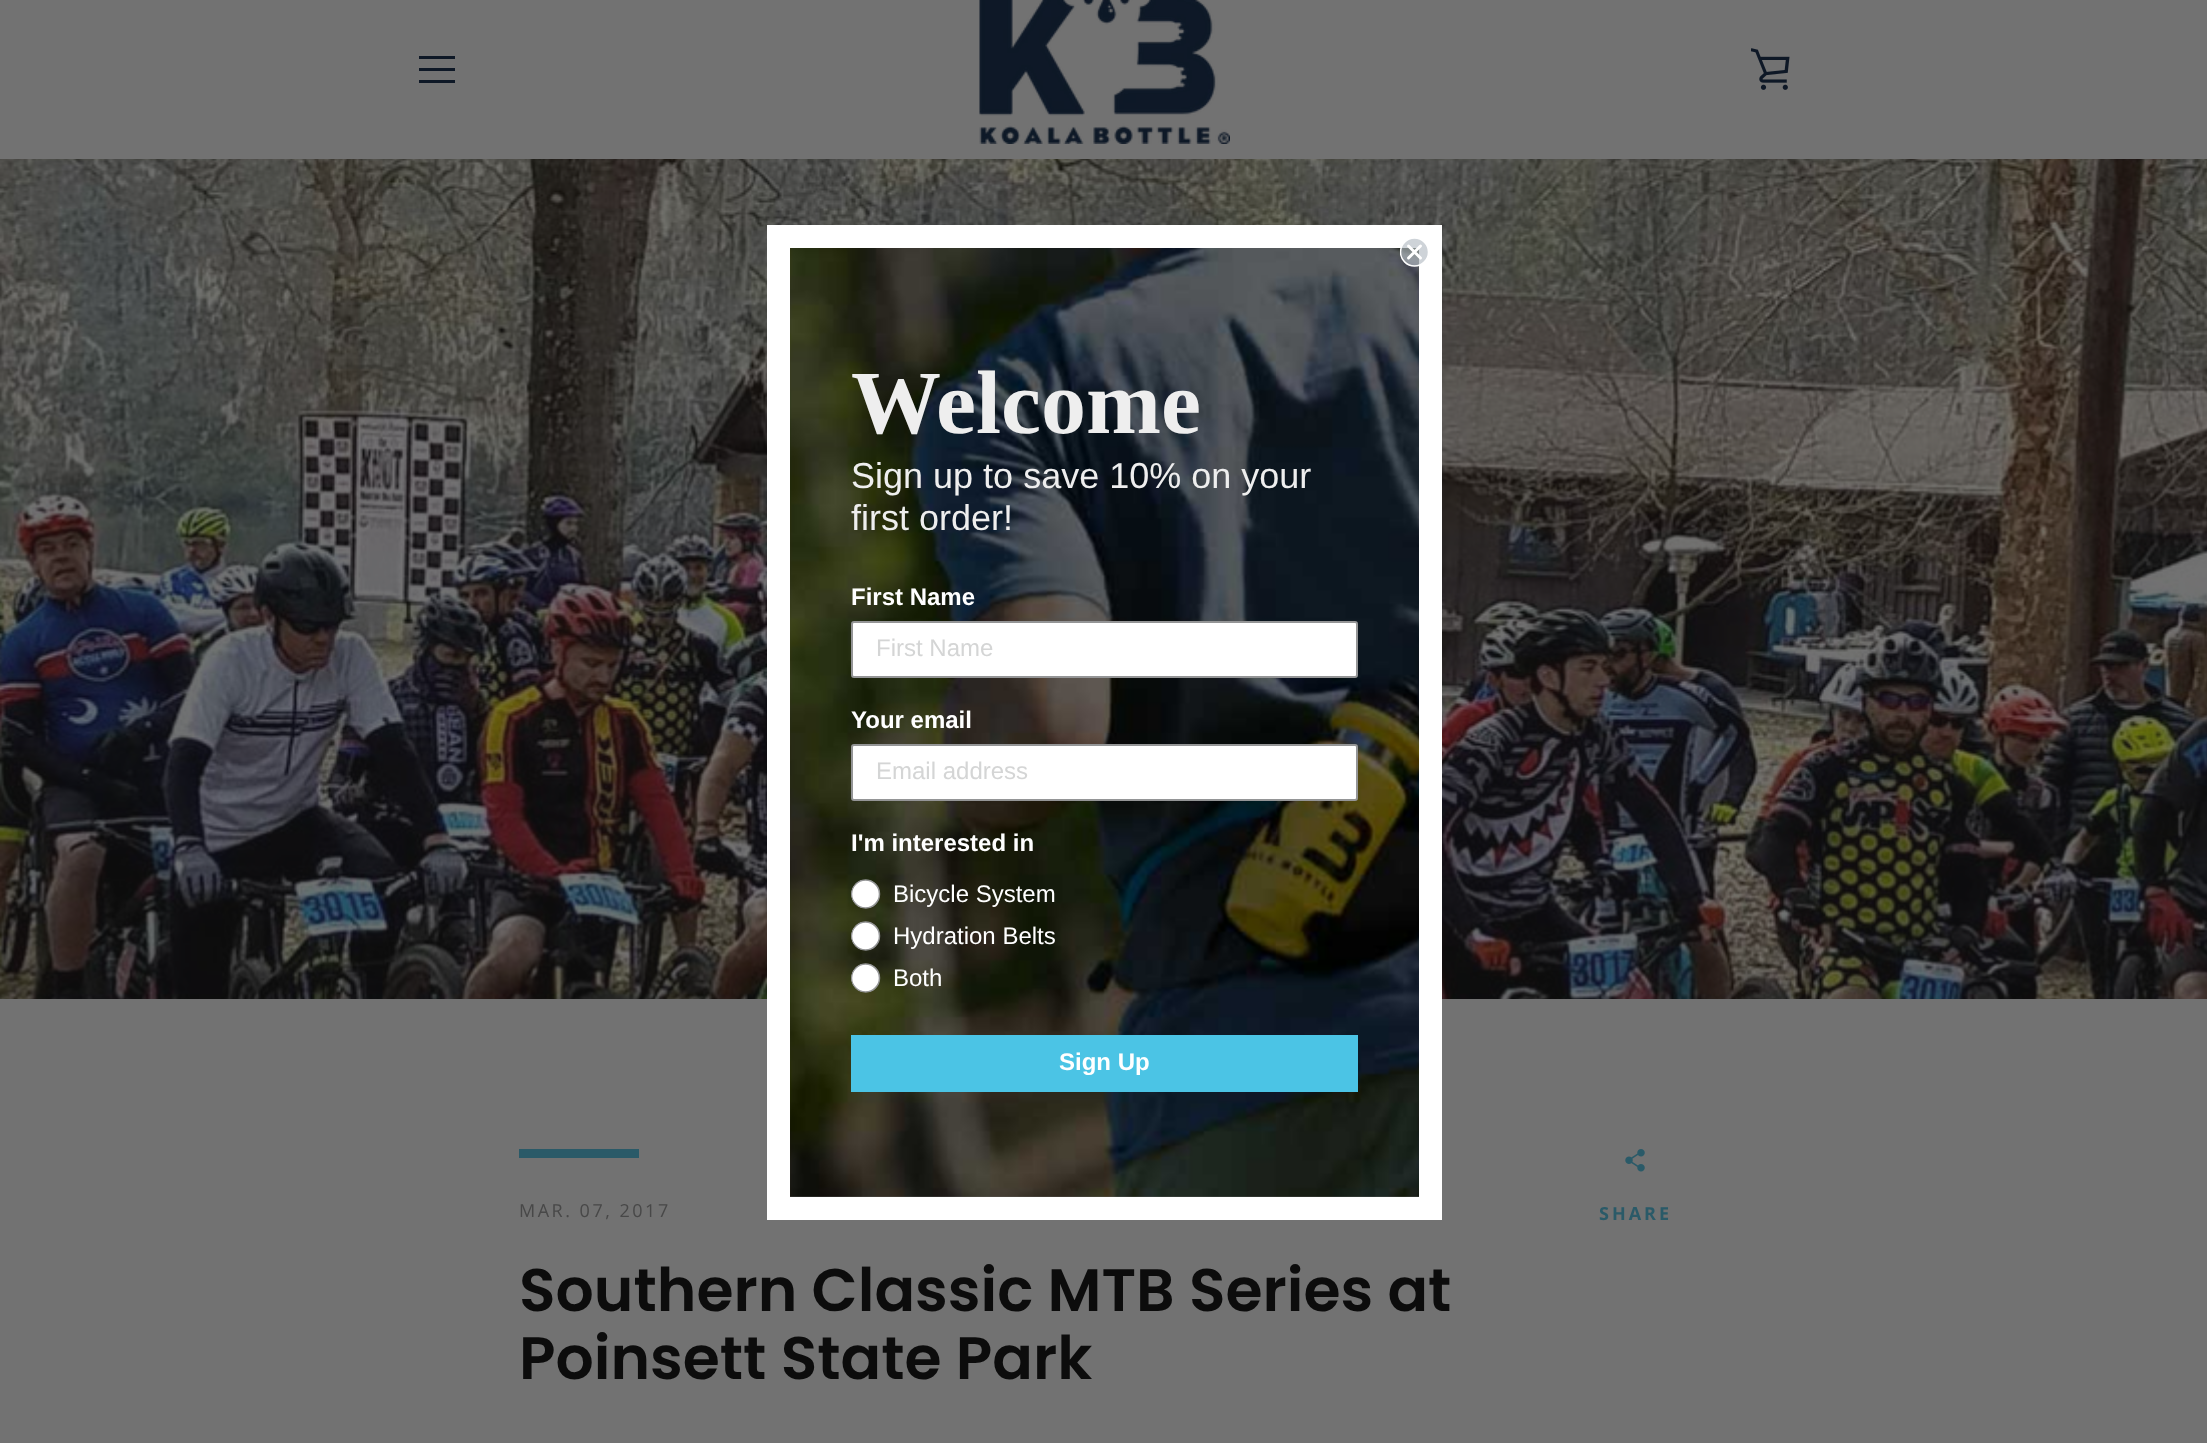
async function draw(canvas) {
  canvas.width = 2207
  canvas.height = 1443
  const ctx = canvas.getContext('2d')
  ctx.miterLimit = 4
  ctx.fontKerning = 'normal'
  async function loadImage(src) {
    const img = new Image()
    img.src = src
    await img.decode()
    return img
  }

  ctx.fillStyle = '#727272'
  ctx.fillRect(0, 0, 2207, 1443)
  ctx.fillStyle = '#0e1826'
  ctx.fillRect(419, 56, 36, 3)
  ctx.fillRect(419, 68, 36, 3)
  ctx.fillRect(419, 80, 36, 3)
  ctx.drawImage(await loadImage('image0.png'), 979, 0, 251, 144)
  ctx.drawImage(await loadImage('image1.png'), 1751, 48, 39, 42)
  ctx.drawImage(await loadImage('image3.png'), 0, 159, 2207, 840)
  ctx.drawImage(await loadImage('image2.png'), 790, 248, 629, 949)
  ctx.strokeStyle = '#fff'
  ctx.lineWidth = 23
  ctx.strokeRect(778.5, 236.5, 652, 972)
  ctx.fillStyle = '#b4bbc3a6'
  ctx.beginPath()
  ctx.arc(1414.5, 252, 14, 0, 2 * Math.PI)
  ctx.fill()
  ctx.save()
  ctx.beginPath()
  ctx.rect(1400, 237, 30, 30)
  ctx.clip()
  ctx.beginPath()
  ctx.arc(1414.5, 252, 14, 0, 2 * Math.PI)
  ctx.lineWidth = 1.5
  ctx.stroke()
  ctx.restore()
  ctx.beginPath()
  ctx.moveTo(1408.5, 246)
  ctx.lineTo(1420.5, 258)
  ctx.moveTo(1408.5, 258)
  ctx.lineTo(1420.5, 246)
  ctx.closePath()
  ctx.lineWidth = 3
  ctx.lineCap = 'round'
  ctx.lineJoin = 'round'
  ctx.stroke()
  ctx.font = 'bold 90px Liberation Serif'
  ctx.fillStyle = '#eee'
  ctx.fillText('Welcome', 851, 433)
  ctx.font = '36px Liberation Sans'
  ctx.fillText('Sign up to save 10% on your', 851, 488)
  ctx.fillText('first order!', 851, 530)
  ctx.font = 'bold 24px Liberation Sans'
  ctx.fillStyle = '#fff'
  ctx.fillText('First Name', 851, 605)
  ctx.beginPath()
  ctx.roundRect(852, 622, 505, 55, 2)
  ctx.fill()
  ctx.strokeStyle = '#949596'
  ctx.lineWidth = 2
  ctx.lineJoin = 'miter'
  ctx.stroke()
  ctx.font = '24px Liberation Sans'
  ctx.fillStyle = '#d4d5d5'
  ctx.fillText('First Name', 876, 656)
  ctx.font = 'bold 24px Liberation Sans'
  ctx.fillStyle = '#fff'
  ctx.fillText('Your email', 851, 728)
  ctx.beginPath()
  ctx.roundRect(852, 745, 505, 55, 2)
  ctx.fill()
  ctx.stroke()
  ctx.font = '24px Liberation Sans'
  ctx.fillStyle = '#d4d5d5'
  ctx.fillText('Email address', 876, 779)
  ctx.font = 'bold 24px Liberation Sans'
  ctx.fillStyle = '#fff'
  ctx.fillText('I\'m interested in', 851, 851)
  ctx.beginPath()
  ctx.arc(865.5, 894, 14, 0, 2 * Math.PI)
  ctx.fill()
  ctx.save()
  ctx.beginPath()
  ctx.roundRect(851, 879, 30, 30, 15)
  ctx.clip()
  ctx.beginPath()
  ctx.arc(865.5, 894, 14, 0, 2 * Math.PI)
  ctx.lineWidth = 1.5
  ctx.stroke()
  ctx.restore()
  ctx.font = '24px Liberation Sans'
  ctx.fillText('Bicycle System', 893, 902)
  ctx.beginPath()
  ctx.arc(865.5, 936, 14, 0, 2 * Math.PI)
  ctx.fill()
  ctx.save()
  ctx.beginPath()
  ctx.roundRect(851, 921, 30, 30, 15)
  ctx.clip()
  ctx.beginPath()
  ctx.arc(865.5, 936, 14, 0, 2 * Math.PI)
  ctx.lineWidth = 1.5
  ctx.stroke()
  ctx.restore()
  ctx.fillText('Hydration Belts', 893, 944)
  ctx.beginPath()
  ctx.arc(865.5, 978, 14, 0, 2 * Math.PI)
  ctx.fill()
  ctx.save()
  ctx.beginPath()
  ctx.roundRect(851, 963, 30, 30, 15)
  ctx.clip()
  ctx.beginPath()
  ctx.arc(865.5, 978, 14, 0, 2 * Math.PI)
  ctx.lineWidth = 1.5
  ctx.stroke()
  ctx.restore()
  ctx.fillText('Both', 893, 986)
  ctx.fillStyle = '#4bc4e5'
  ctx.fillRect(851, 1035, 507, 57)
  ctx.font = 'bold 24px Liberation Sans'
  ctx.fillStyle = '#fff'
  ctx.fillText('Sign Up', 1059, 1070)
  ctx.fillStyle = '#2a5a68'
  ctx.fillRect(519, 1149, 120, 9)
  ctx.letterSpacing = '2.5px'
  ctx.font = '18px Open Sans'
  ctx.fillStyle = '#484848'
  ctx.fillText('MAR. 07, 2017', 519, 1217)
  ctx.letterSpacing = '0px'
  ctx.font = '600 60px Poppins'
  ctx.fillStyle = '#0c0c0c'
  ctx.fillText('Southern Classic MTB Series at', 519, 1311)
  ctx.fillText('Poinsett State Park', 519, 1379)
  ctx.drawImage(await loadImage('image4.png'), 1625, 1149, 20, 23)
  ctx.letterSpacing = '3px'
  ctx.font = 'bold 18px Open Sans'
  ctx.fillStyle = '#2a5a68'
  ctx.fillText('SHARE', 1599, 1220)
}

draw(document.querySelector('canvas'))
